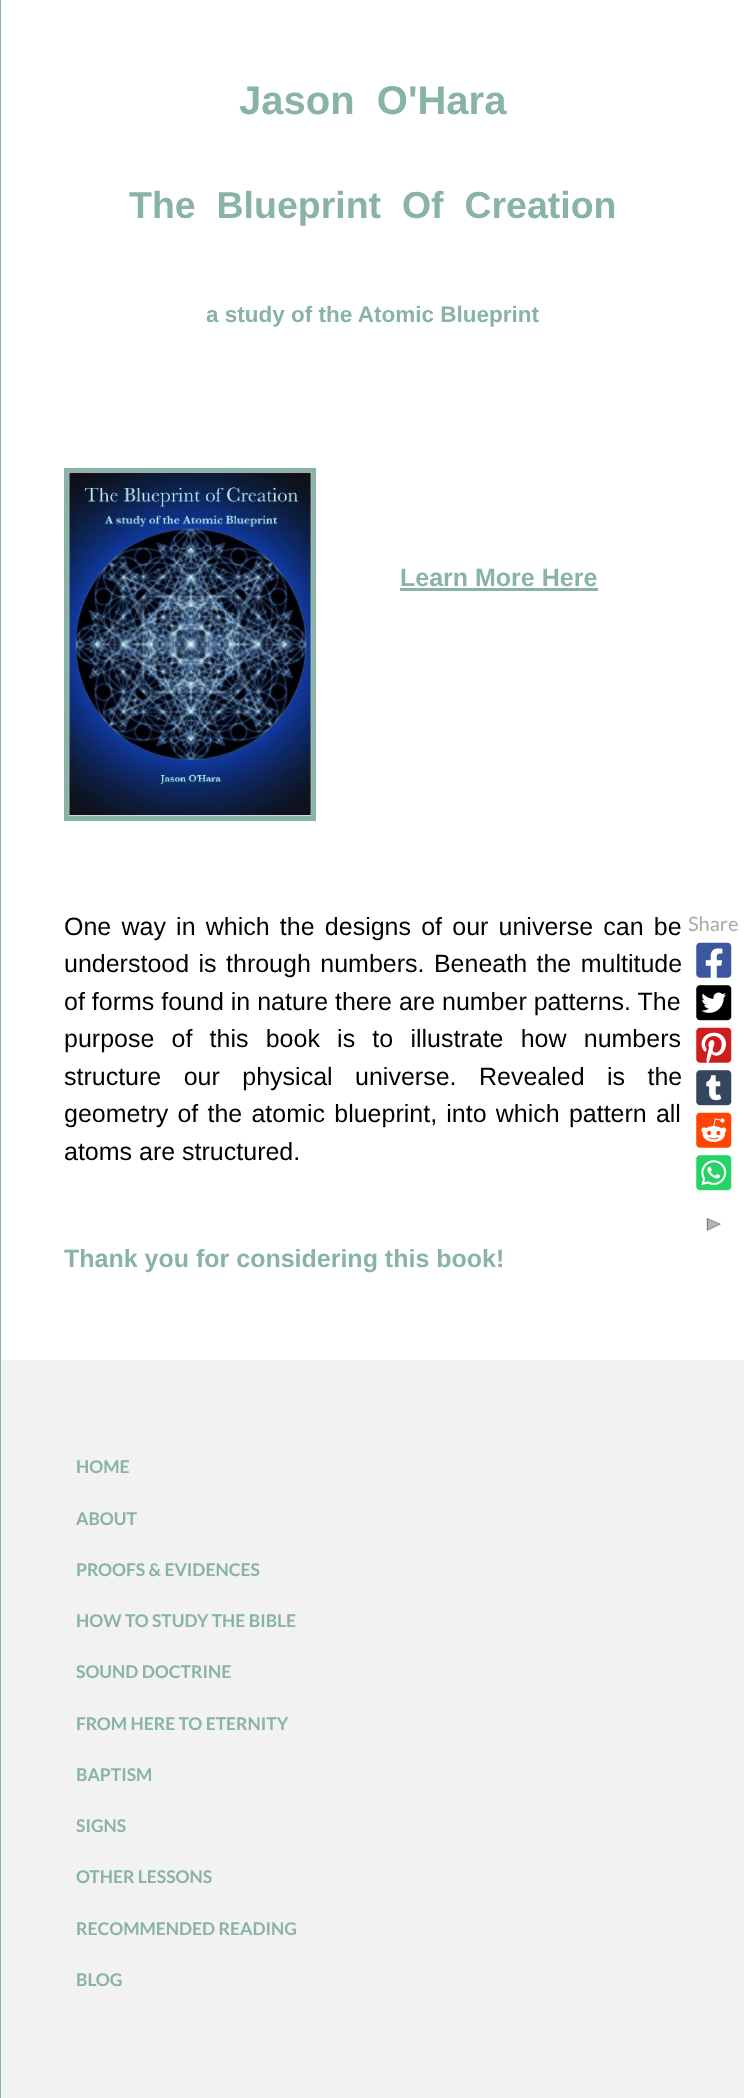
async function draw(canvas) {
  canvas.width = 744
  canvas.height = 2098
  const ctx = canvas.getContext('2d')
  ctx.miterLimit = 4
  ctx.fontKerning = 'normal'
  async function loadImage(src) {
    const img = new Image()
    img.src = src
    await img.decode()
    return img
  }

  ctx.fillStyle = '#89b3a5'
  ctx.fillRect(0, 0, 744, 2098)
  ctx.fillStyle = '#fff'
  ctx.fillRect(1, 0, 743, 1360)
  ctx.font = 'bold 40px Liberation Sans'
  ctx.fillStyle = '#89b3a5'
  ctx.fillText('Jason  O\'Hara', 239, 114)
  ctx.font = 'bold 37.5px Liberation Sans'
  ctx.fillText('The  Blueprint  Of  Creation', 129, 218)
  ctx.font = 'bold 22.5px Liberation Sans'
  ctx.fillText('a study of the Atomic Blueprint', 206, 322)
  ctx.strokeStyle = '#89b3a5'
  ctx.lineWidth = 5
  ctx.strokeRect(66.5, 470.5, 247, 348)
  ctx.drawImage(await loadImage('image0.png'), 68, 472, 244, 344)
  ctx.font = 'bold 25px Liberation Sans'
  ctx.fillText('Learn More Here', 400, 586)
  ctx.fillRect(400, 588, 198, 3)
  ctx.wordSpacing = '3.25px'
  ctx.font = '25px Liberation Sans'
  ctx.fillStyle = '#000'
  ctx.fillText('One way in which the designs of our universe can be', 64, 935)
  ctx.wordSpacing = '2.5px'
  ctx.fillText('understood is through numbers. Beneath the multitude', 64, 972)
  ctx.wordSpacing = '0px'
  ctx.fillText('of forms found in nature there are number patterns. The', 64, 1010)
  ctx.wordSpacing = '10.25px'
  ctx.fillText('purpose of this book is to illustrate how numbers', 64, 1047)
  ctx.wordSpacing = '15.5px'
  ctx.fillText('structure our physical universe. Revealed is the', 64, 1085)
  ctx.wordSpacing = '2.25px'
  ctx.fillText('geometry of the atomic blueprint, into which pattern all', 64, 1122)
  ctx.wordSpacing = '0px'
  ctx.fillText('atoms are structured.', 64, 1160)
  ctx.font = 'bold 25px Liberation Sans'
  ctx.fillStyle = '#89b3a5'
  ctx.fillText('Thank you for considering this book!', 64, 1267)
  ctx.fillStyle = '#f2f2f2'
  ctx.fillRect(1, 1360, 743, 738)
  ctx.font = '20px Lato'
  ctx.fillStyle = '#aaa'
  ctx.fillText('Share', 688, 931)
  ctx.drawImage(await loadImage('image1.png'), 696, 942, 36, 36)
  ctx.drawImage(await loadImage('image2.png'), 696, 985, 36, 36)
  ctx.drawImage(await loadImage('image3.png'), 696, 1027, 36, 36)
  ctx.drawImage(await loadImage('image4.png'), 696, 1070, 36, 36)
  ctx.drawImage(await loadImage('image5.png'), 696, 1112, 36, 36)
  ctx.drawImage(await loadImage('image6.png'), 696, 1155, 36, 36)
  ctx.drawImage(await loadImage('image7.png'), 706, 1218, 15, 14)
  ctx.font = 'bold 17.5px Lato'
  ctx.fillStyle = '#89b3a5'
  ctx.fillText('HOME', 76, 1473)
  ctx.fillText('ABOUT', 76, 1525)
  ctx.fillText('PROOFS & EVIDENCES', 76, 1576)
  ctx.fillText('HOW TO STUDY THE BIBLE', 76, 1627)
  ctx.fillText('SOUND DOCTRINE', 76, 1678)
  ctx.fillText('FROM HERE TO ETERNITY', 76, 1730)
  ctx.fillText('BAPTISM', 76, 1781)
  ctx.fillText('SIGNS', 76, 1832)
  ctx.fillText('OTHER LESSONS', 76, 1883)
  ctx.fillText('RECOMMENDED READING', 76, 1935)
  ctx.fillText('BLOG', 76, 1986)
}

draw(document.querySelector('canvas'))
